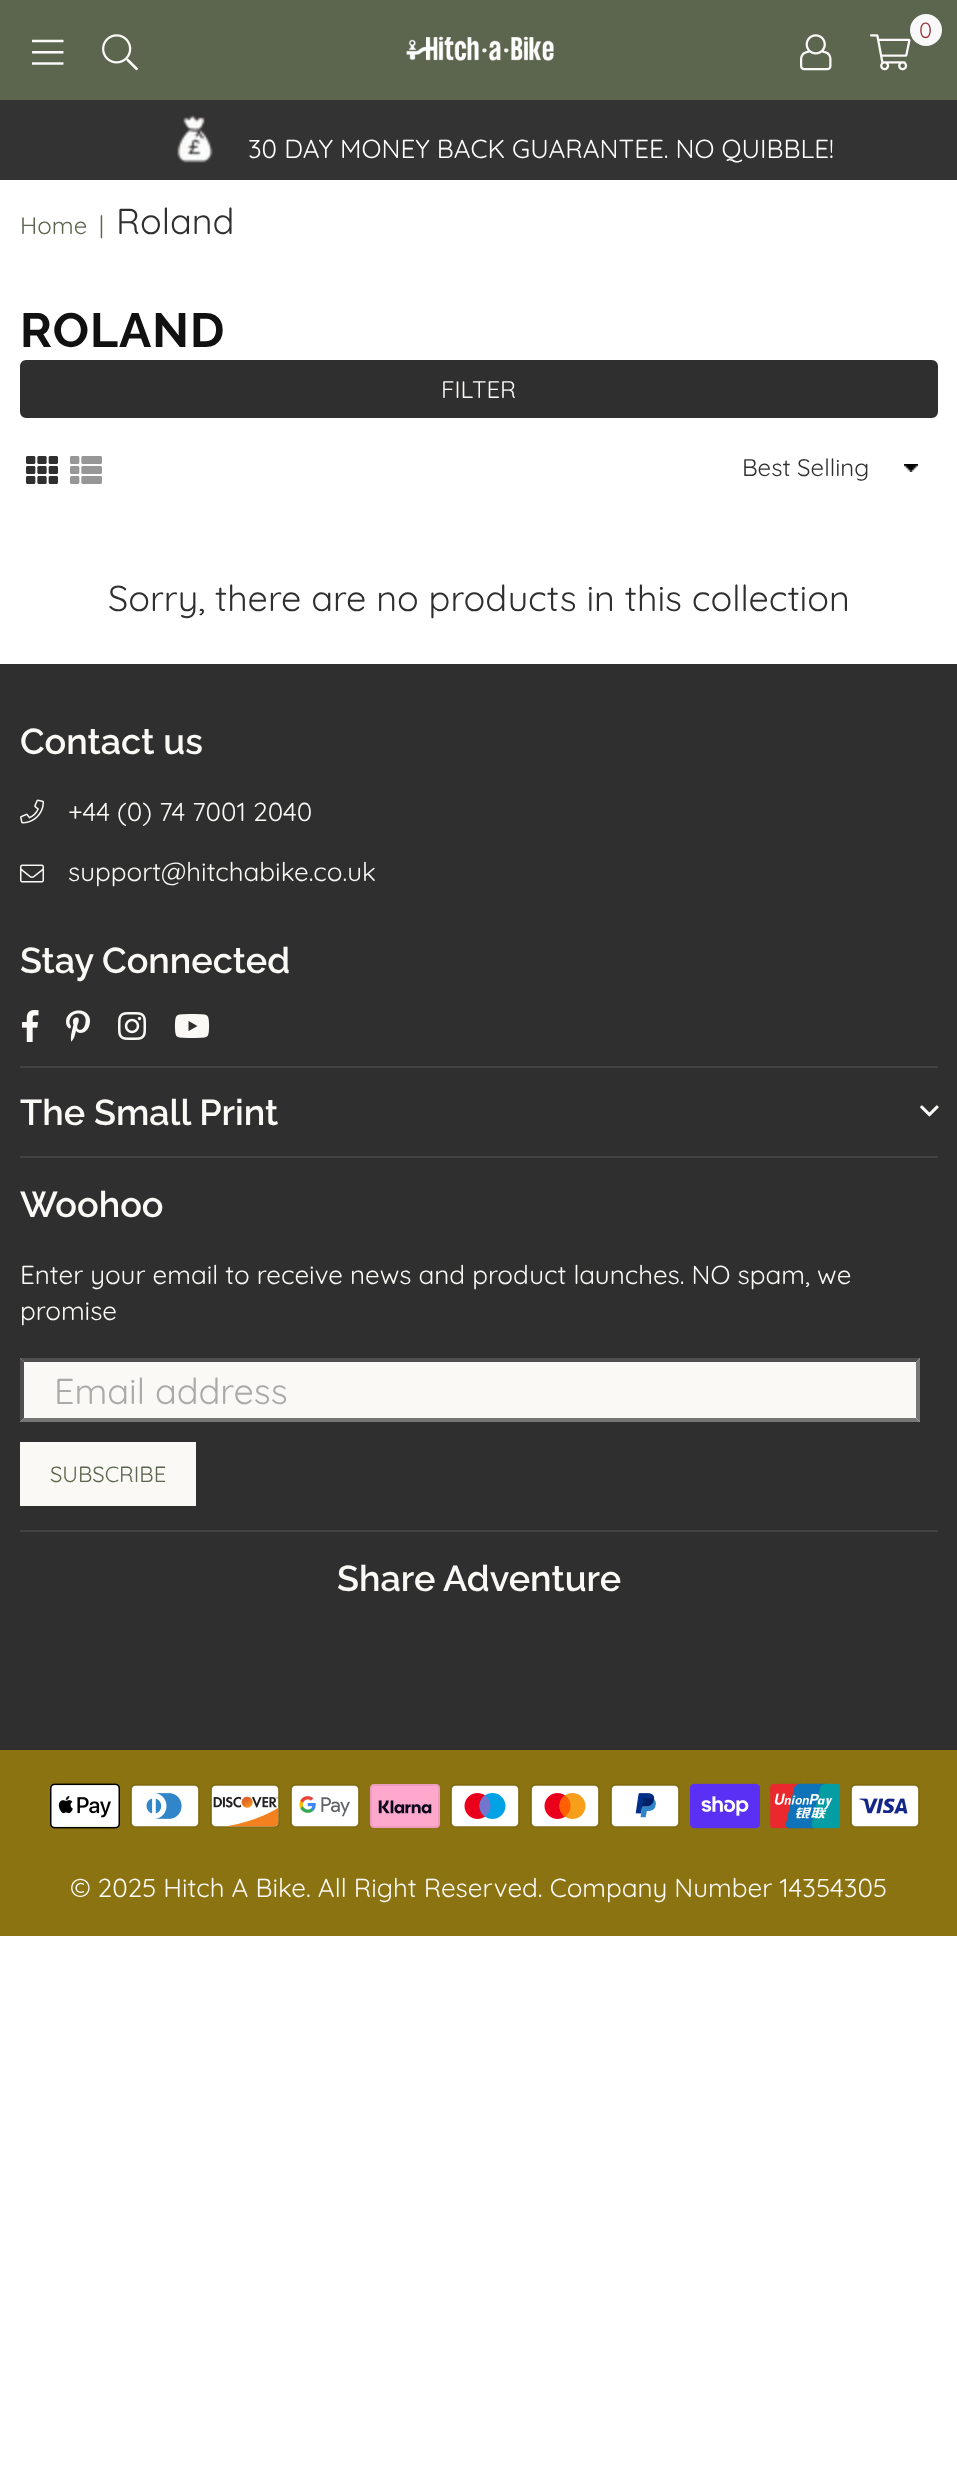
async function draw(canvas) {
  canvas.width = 957
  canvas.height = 2481
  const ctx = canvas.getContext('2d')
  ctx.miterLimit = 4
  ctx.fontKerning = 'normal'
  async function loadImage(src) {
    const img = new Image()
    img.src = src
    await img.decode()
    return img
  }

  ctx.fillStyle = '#fff'
  ctx.fillRect(0, 0, 957, 2481)
  ctx.fillStyle = '#5c654d'
  ctx.fillRect(0, 0, 957, 100)
  ctx.drawImage(await loadImage('image0.png'), 870, 34, 41, 37)
  ctx.fillStyle = '#f9f9f9'
  ctx.beginPath()
  ctx.arc(926, 30, 16, 0, 2 * Math.PI)
  ctx.fill()
  ctx.font = '22px Quicksand'
  ctx.fillStyle = '#993b42'
  ctx.fillText('0', 919, 38)
  ctx.drawImage(await loadImage('image1.png'), 800, 34, 32, 37)
  ctx.drawImage(await loadImage('image2.png'), 32, 39, 32, 26)
  ctx.drawImage(await loadImage('image3.png'), 102, 34, 36, 37)
  ctx.drawImage(await loadImage('image4.png'), 406, 36, 148, 25)
  ctx.fillStyle = '#333'
  ctx.fillRect(0, 100, 957, 80)
  ctx.drawImage(await loadImage('image5.png'), 177, 115, 36, 48)
  ctx.font = '26px Quicksand'
  ctx.fillStyle = '#fff'
  ctx.fillText('30 DAY MONEY BACK GUARANTEE. NO QUIBBLE!', 248, 158)
  ctx.font = '24px Quicksand'
  ctx.fillStyle = '#5c654d'
  ctx.fillText('Home', 20, 234)
  ctx.fillText('|', 99, 234)
  ctx.font = '36px Quicksand'
  ctx.fillStyle = '#2f2f2f'
  ctx.fillText('Roland', 116, 234)
  ctx.letterSpacing = '1px'
  ctx.font = 'bold 48px Raleway'
  ctx.fillStyle = '#111'
  ctx.fillText('ROLAND', 20, 347)
  ctx.fillStyle = '#2f2f2f'
  ctx.beginPath()
  ctx.roundRect(22, 362, 914, 54, 4)
  ctx.fill()
  ctx.strokeStyle = '#2f2f2f'
  ctx.lineWidth = 4
  ctx.stroke()
  ctx.letterSpacing = '0px'
  ctx.font = '24px Quicksand'
  ctx.fillStyle = '#faf9f6'
  ctx.fillText('FILTER', 441, 398)
  ctx.drawImage(await loadImage('image6.png'), 26, 456, 32, 28)
  ctx.drawImage(await loadImage('image7.png'), 70, 456, 32, 28)
  ctx.drawImage(await loadImage('image8.png'), 904, 464, 14, 8)
  ctx.fillStyle = '#2f2f2f'
  ctx.fillText('Best Selling', 742, 476)
  ctx.font = '36px Quicksand'
  ctx.fillText('Sorry, there are no products in this collection', 108, 611)
  ctx.fillRect(0, 664, 957, 1086)
  ctx.font = '600 36px Raleway'
  ctx.fillStyle = '#faf9f6'
  ctx.fillText('Contact us', 20, 754)
  ctx.drawImage(await loadImage('image9.png'), 20, 799, 24, 25)
  ctx.font = '26px Quicksand'
  ctx.fillText('+44 (0) 74 7001 2040', 68, 821)
  ctx.drawImage(await loadImage('image10.png'), 20, 864, 24, 19)
  ctx.fillText('support@hitchabike.co.uk', 68, 881)
  ctx.font = '600 36px Raleway'
  ctx.fillText('Stay Connected', 20, 973)
  ctx.drawImage(await loadImage('image11.png'), 22, 1010, 17, 32)
  ctx.drawImage(await loadImage('image12.png'), 66, 1010, 24, 32)
  ctx.drawImage(await loadImage('image13.png'), 118, 1012, 28, 28)
  ctx.drawImage(await loadImage('image14.png'), 174, 1014, 36, 24)
  ctx.fillStyle = '#434343'
  ctx.fillRect(20, 1066, 918, 2)
  ctx.fillStyle = '#faf9f6'
  ctx.fillText('The Small Print', 20, 1125)
  ctx.drawImage(await loadImage('image15.png'), 920, 1105, 19, 12)
  ctx.fillStyle = '#434343'
  ctx.fillRect(20, 1156, 918, 2)
  ctx.fillStyle = '#faf9f6'
  ctx.fillText('Woohoo', 20, 1217)
  ctx.font = '26px Quicksand'
  ctx.fillText('Enter your email to receive news and product launches. NO spam, we', 20, 1284)
  ctx.fillText('promise', 20, 1320)
  ctx.fillRect(20, 1358, 900, 64)
  ctx.fillStyle = '#4f4f4f'
  ctx.beginPath()
  ctx.moveTo(20, 1358)
  ctx.lineTo(920, 1358)
  ctx.lineTo(916, 1362)
  ctx.lineTo(24, 1362)
  ctx.closePath()
  ctx.fill()
  ctx.fillStyle = '#767676'
  ctx.beginPath()
  ctx.moveTo(920, 1358)
  ctx.lineTo(920, 1422)
  ctx.lineTo(916, 1418)
  ctx.lineTo(916, 1362)
  ctx.closePath()
  ctx.fill()
  ctx.beginPath()
  ctx.moveTo(920, 1422)
  ctx.lineTo(20, 1422)
  ctx.lineTo(24, 1418)
  ctx.lineTo(916, 1418)
  ctx.closePath()
  ctx.fill()
  ctx.fillStyle = '#4f4f4f'
  ctx.beginPath()
  ctx.moveTo(20, 1422)
  ctx.lineTo(20, 1358)
  ctx.lineTo(24, 1362)
  ctx.lineTo(24, 1418)
  ctx.closePath()
  ctx.fill()
  ctx.font = '36px Quicksand'
  ctx.fillStyle = '#aaaaa9'
  ctx.fillText('Email address', 54, 1404)
  ctx.fillStyle = '#faf9f6'
  ctx.fillRect(20, 1442, 176, 64)
  ctx.font = '22px Quicksand'
  ctx.fillStyle = '#5c654d'
  ctx.fillText('SUBSCRIBE', 50, 1482)
  ctx.fillStyle = '#434343'
  ctx.fillRect(20, 1530, 918, 2)
  ctx.font = '600 36px Raleway'
  ctx.fillStyle = '#faf9f6'
  ctx.fillText('Share Adventure', 337, 1591)
  ctx.fillStyle = '#8b7312'
  ctx.fillRect(0, 1750, 957, 186)
  ctx.drawImage(await loadImage('image16.png'), 50, 1783, 70, 46)
  ctx.drawImage(await loadImage('image17.png'), 130, 1784, 70, 44)
  ctx.drawImage(await loadImage('image18.png'), 210, 1784, 70, 44)
  ctx.drawImage(await loadImage('image19.png'), 290, 1784, 70, 44)
  ctx.drawImage(await loadImage('image20.png'), 370, 1784, 70, 44)
  ctx.drawImage(await loadImage('image21.png'), 450, 1784, 70, 44)
  ctx.drawImage(await loadImage('image22.png'), 530, 1784, 70, 44)
  ctx.drawImage(await loadImage('image23.png'), 610, 1784, 70, 44)
  ctx.drawImage(await loadImage('image24.png'), 690, 1783, 70, 46)
  ctx.drawImage(await loadImage('image25.png'), 770, 1783, 70, 46)
  ctx.drawImage(await loadImage('image26.png'), 850, 1784, 70, 44)
  ctx.font = '26px Quicksand'
  ctx.fillStyle = '#faf9f6'
  ctx.fillText('© 2025 Hitch A Bike. All Right Reserved. Company Number 14354305', 70, 1897)
}

draw(document.querySelector('canvas'))
